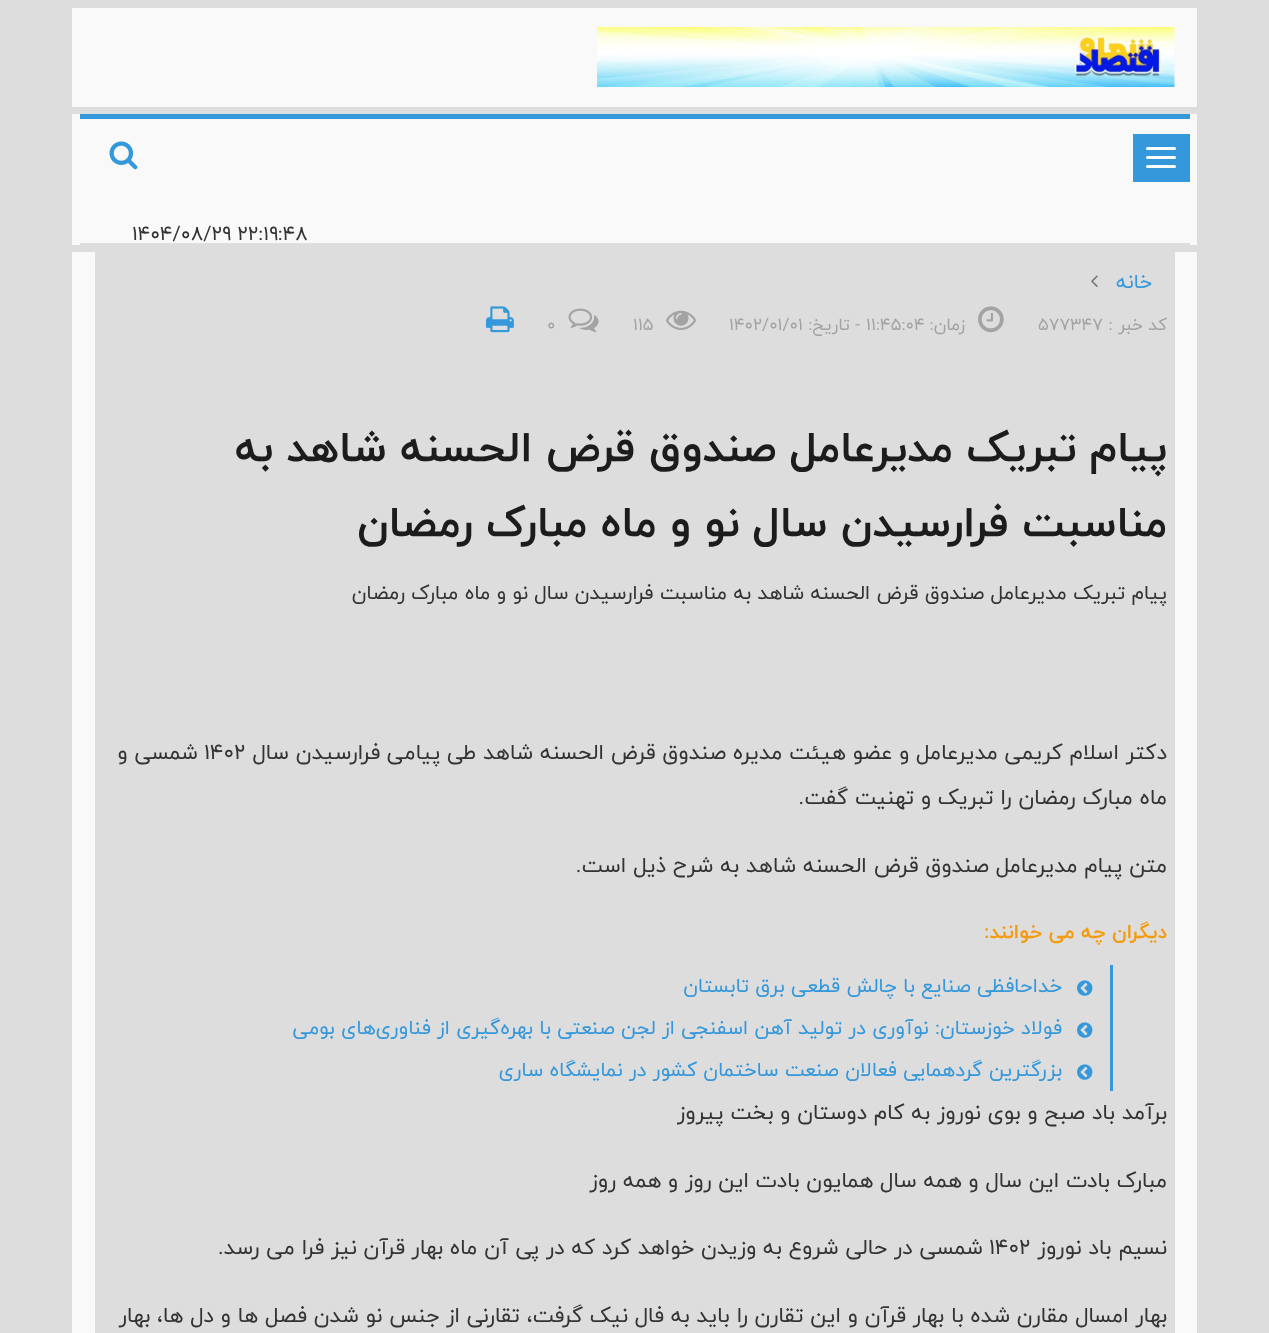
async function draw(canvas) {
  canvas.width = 1269
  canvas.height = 1333
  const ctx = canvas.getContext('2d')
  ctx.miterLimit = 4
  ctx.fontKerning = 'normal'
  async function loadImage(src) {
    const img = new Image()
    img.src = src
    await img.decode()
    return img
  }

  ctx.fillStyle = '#ddd'
  ctx.fillRect(0, 0, 1269, 1333)
  ctx.fillStyle = '#f9f9f9'
  ctx.fillRect(72, 8, 1125, 99)
  ctx.drawImage(await loadImage('image0.png'), 597, 27, 578, 60)
  ctx.fillRect(72, 114, 1125, 131)
  ctx.fillStyle = '#3498db'
  ctx.fillRect(80, 114, 1110, 5)
  ctx.fillStyle = '#dedede'
  ctx.fillRect(80, 243, 1110, 2)
  ctx.fillStyle = '#3498db'
  ctx.fillRect(1133, 134, 57, 48)
  ctx.fillStyle = '#fff'
  ctx.beginPath()
  ctx.roundRect(1146, 147, 30, 3, 1.5)
  ctx.fill()
  ctx.beginPath()
  ctx.roundRect(1146, 156, 30, 3, 1.5)
  ctx.fill()
  ctx.beginPath()
  ctx.roundRect(1146, 165, 30, 3, 1.5)
  ctx.fill()
  ctx.drawImage(await loadImage('image1.png'), 109, 141, 29, 29)
  ctx.font = '21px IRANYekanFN'
  ctx.fillStyle = '#333'
  ctx.fillText('۱۴۰۴/۰۸/۲۹ ۲۲:۱۹:۴۸', 132, 240)
  ctx.fillStyle = '#f9f9f9'
  ctx.fillRect(72, 252, 1125, 1081)
  ctx.fillStyle = '#ddd'
  ctx.fillRect(95, 252, 1080, 1081)
  ctx.direction = 'rtl'
  ctx.fillStyle = '#3498db'
  ctx.fillText('خانه', 1152, 288)
  ctx.drawImage(await loadImage('image2.png'), 1091, 275, 7, 12)
  ctx.font = '18px IRANYekanFN'
  ctx.fillStyle = '#a3a3a3'
  ctx.fillText('کد خبر :', 1167, 330)
  ctx.direction = 'ltr'
  ctx.fillText('577347', 1038, 330)
  ctx.drawImage(await loadImage('image3.png'), 978, 306, 26, 27)
  ctx.direction = 'rtl'
  ctx.fillText('زمان:', 965, 330)
  ctx.direction = 'ltr'
  ctx.fillText('۱۱:۴۵:۰۴', 866, 330)
  ctx.direction = 'rtl'
  ctx.fillText('- تاریخ:', 860, 330)
  ctx.direction = 'ltr'
  ctx.fillText('۱۴۰۲/۰۱/۰۱', 729, 330)
  ctx.drawImage(await loadImage('image4.png'), 666, 310, 30, 20)
  ctx.fillText('115', 633, 330)
  ctx.drawImage(await loadImage('image5.png'), 568, 308, 31, 25)
  ctx.fillText('0', 547, 330)
  ctx.drawImage(await loadImage('image6.png'), 486, 306, 28, 27)
  ctx.direction = 'rtl'
  ctx.font = 'bold 45px IRANYekanFN'
  ctx.fillStyle = '#1c1c1c'
  ctx.fillText('پیام تبریک مدیرعامل صندوق قرض الحسنه شاهد به', 1167, 461)
  ctx.fillText('مناسبت فرارسیدن سال نو و ماه مبارک رمضان', 1167, 536)
  ctx.font = '21px IRANYekanFN'
  ctx.fillStyle = '#333'
  ctx.fillText('پیام تبریک مدیرعامل صندوق قرض الحسنه شاهد به مناسبت فرارسیدن سال نو و ماه مبارک رمضان', 1167, 599)
  ctx.font = '22.5px IRANYekanFN'
  ctx.fillText('دکتر اسلام کریمی مدیرعامل و عضو هیئت مدیره صندوق قرض الحسنه شاهد طی پیامی فرارسیدن سال', 1167, 759)
  ctx.direction = 'ltr'
  ctx.fillText('1402', 204, 759)
  ctx.direction = 'rtl'
  ctx.fillText('شمسی و', 198, 759)
  ctx.fillText('ماه مبارک رمضان را تبریک و تهنیت گفت.', 1167, 804)
  ctx.fillText('متن پیام مدیرعامل صندوق قرض الحسنه شاهد به شرح ذیل است.', 1167, 872)
  ctx.font = 'bold 21px IRANYekanFN'
  ctx.fillStyle = '#f39c12'
  ctx.fillText('دیگران چه می خوانند:', 1167, 938)
  ctx.fillStyle = '#3498db'
  ctx.fillRect(1110, 965, 3, 126)
  ctx.drawImage(await loadImage('image7.png'), 1077, 980, 16, 16)
  ctx.font = '21px IRANYekanFN'
  ctx.fillText('خداحافظی صنایع با چالش قطعی برق تابستان', 1062, 992)
  ctx.drawImage(await loadImage('image7.png'), 1077, 1022, 16, 16)
  ctx.fillText('فولاد خوزستان: نوآوری در تولید آهن اسفنجی از لجن صنعتی با بهره‌گیری از فناوری‌های بومی', 1062, 1034)
  ctx.drawImage(await loadImage('image7.png'), 1077, 1064, 16, 16)
  ctx.fillText('بزرگترین گردهمایی فعالان صنعت ساختمان کشور در نمایشگاه ساری', 1062, 1076)
  ctx.font = '22.5px IRANYekanFN'
  ctx.fillStyle = '#333'
  ctx.fillText('برآمد باد صبح و بوی نوروز به کام دوستان و بخت پیروز', 1167, 1119)
  ctx.fillText('مبارک بادت این سال و همه سال همایون بادت این روز و همه روز', 1167, 1187)
  ctx.fillText('نسیم باد نوروز', 1167, 1254)
  ctx.direction = 'ltr'
  ctx.fillText('1402', 989, 1254)
  ctx.direction = 'rtl'
  ctx.fillText('شمسی در حالی شروع به وزیدن خواهد کرد که در پی آن ماه بهار قرآن نیز فرا می رسد.', 983, 1254)
  ctx.fillText('بهار امسال مقارن شده با بهار قرآن و این تقارن را باید به فال نیک گرفت، تقارنی از جنس نو شدن فصل ها و دل ها، بهار', 1167, 1322)
}

draw(document.querySelector('canvas'))
